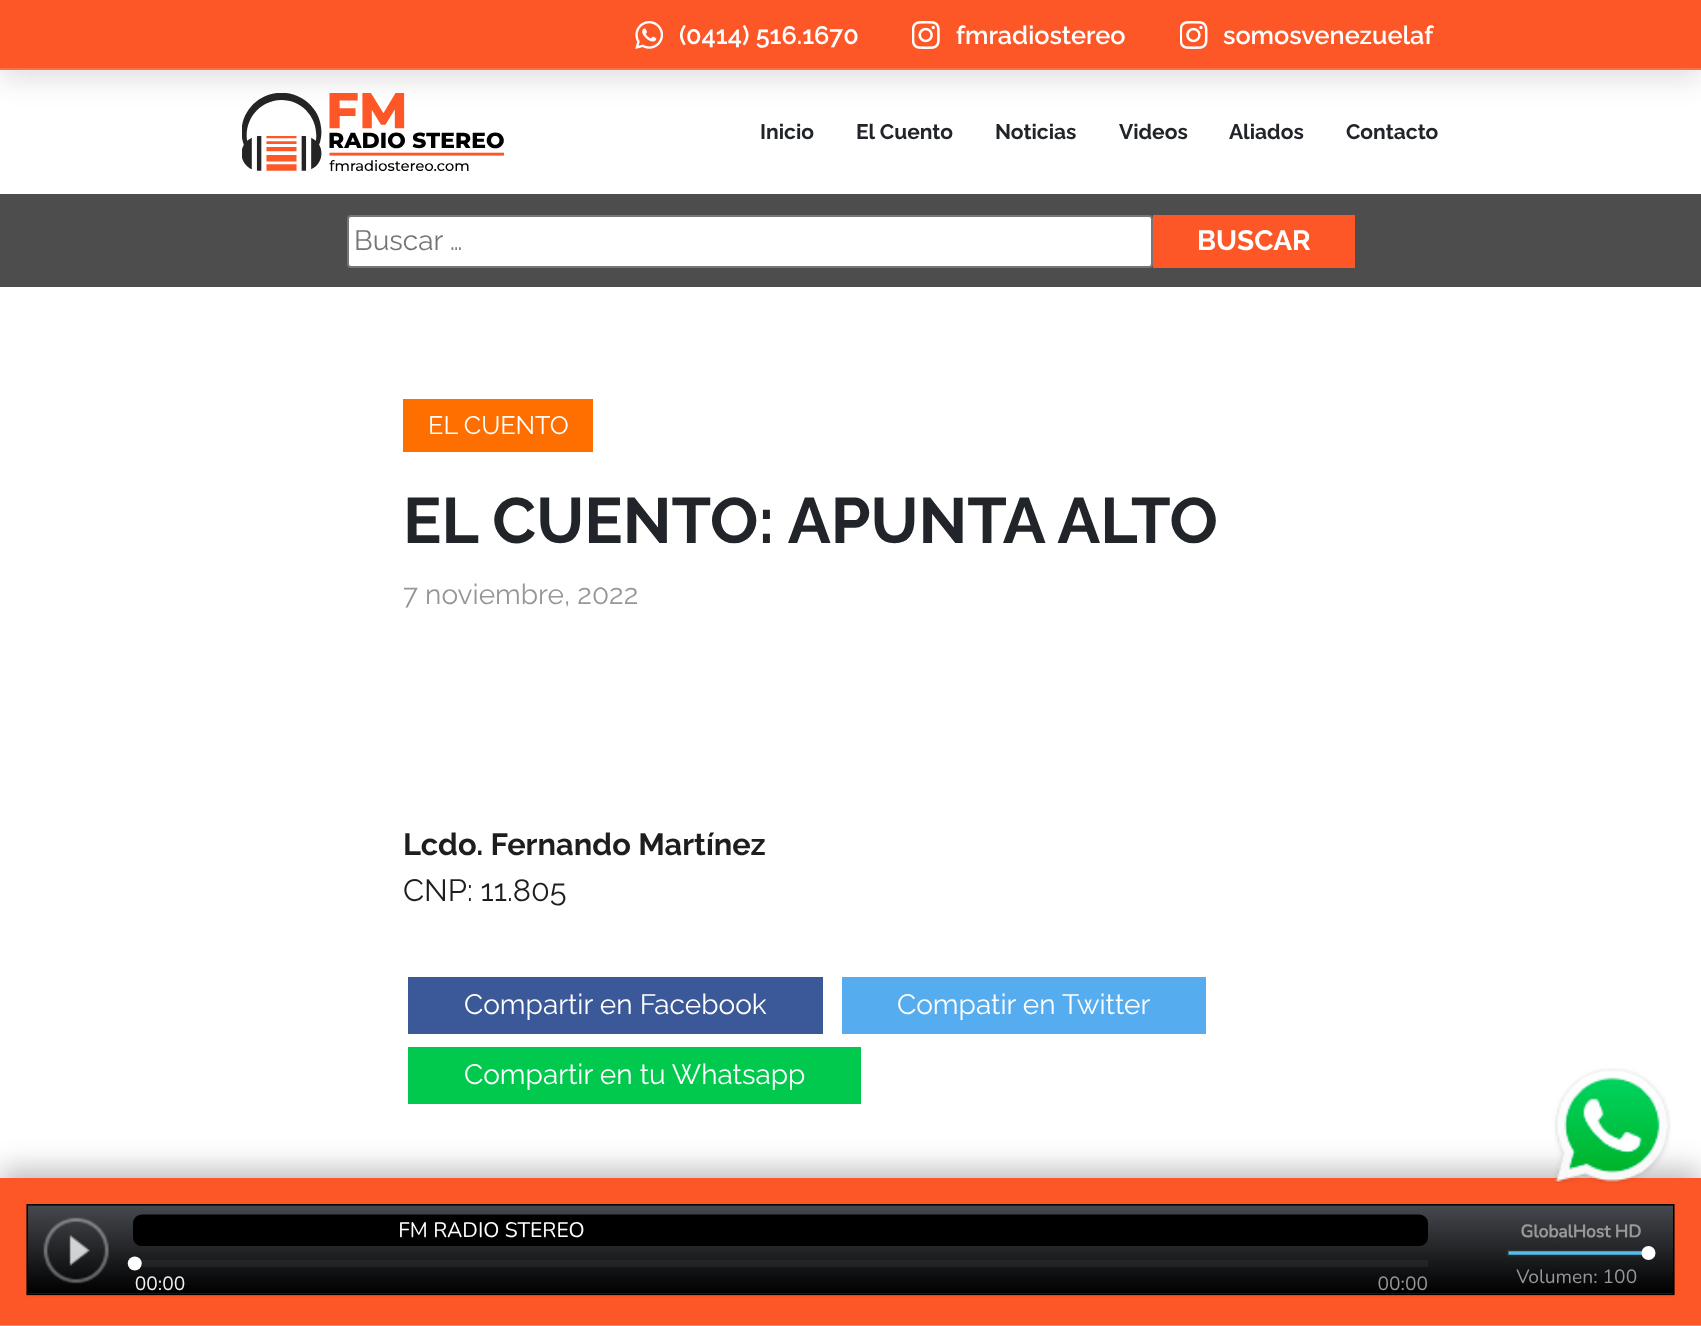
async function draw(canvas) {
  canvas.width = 1701
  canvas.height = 1326
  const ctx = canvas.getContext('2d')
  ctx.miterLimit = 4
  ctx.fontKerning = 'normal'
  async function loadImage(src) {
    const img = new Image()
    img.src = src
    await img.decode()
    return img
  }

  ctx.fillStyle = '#fff'
  ctx.fillRect(0, 0, 1701, 1326)
  ctx.fillStyle = '#24242426'
  ctx.filter = 'blur(14px)'
  ctx.beginPath()
  ctx.rect(0, 9, 1701, 70)
  ctx.fill()
  ctx.filter = 'none'
  ctx.fillStyle = '#fe5727'
  ctx.fillRect(0, 0, 1701, 68)
  ctx.fillStyle = '#fe7047'
  ctx.fillRect(0, 68, 1701, 2)
  ctx.drawImage(await loadImage('image0.png'), 635, 21, 28, 28)
  ctx.font = '600 25.25px Raleway'
  ctx.fillStyle = '#fff'
  ctx.fillText('(0414) 516.1670', 679, 44)
  ctx.drawImage(await loadImage('image1.png'), 912, 21, 28, 28)
  ctx.fillText('fmradiostereo', 956, 44)
  ctx.drawImage(await loadImage('image2.png'), 1180, 21, 28, 28)
  ctx.fillText('somosvenezuelaf', 1223, 44)
  ctx.drawImage(await loadImage('image3.png'), 242, 93, 262, 78)
  ctx.font = 'bold 21px Raleway'
  ctx.fillStyle = '#212529'
  ctx.fillText('Inicio', 760, 139)
  ctx.fillText('El Cuento', 856, 139)
  ctx.fillText('Noticias', 995, 139)
  ctx.fillText('Videos', 1119, 139)
  ctx.fillText('Aliados', 1229, 139)
  ctx.fillText('Contacto', 1346, 139)
  ctx.fillStyle = '#4d4d4d'
  ctx.fillRect(0, 194, 1701, 93)
  ctx.fillStyle = '#fff'
  ctx.beginPath()
  ctx.roundRect(348, 216, 804, 51, 3)
  ctx.fill()
  ctx.strokeStyle = '#767676'
  ctx.lineWidth = 2
  ctx.stroke()
  ctx.font = '28px Raleway'
  ctx.fillStyle = '#757575'
  ctx.fillText('Buscar …', 354, 250)
  ctx.fillStyle = '#fe5727'
  ctx.fillRect(1153, 215, 202, 53)
  ctx.font = 'bold 28px Raleway'
  ctx.fillStyle = '#fff'
  ctx.fillText('BUSCAR', 1197, 250)
  ctx.fillStyle = '#ff6f00'
  ctx.fillRect(403, 399, 190, 53)
  ctx.font = '25.25px Raleway'
  ctx.fillStyle = '#fff'
  ctx.fillText('EL CUENTO', 428, 434)
  ctx.font = 'bold 64px Raleway'
  ctx.fillStyle = '#212529'
  ctx.fillText('EL CUENTO: APUNTA ALTO', 403, 543)
  ctx.font = '28px Raleway'
  ctx.fillStyle = '#969696'
  ctx.fillText('7 noviembre, 2022', 403, 604)
  ctx.font = 'bold 30.75px Raleway'
  ctx.fillStyle = '#1e1e1f'
  ctx.fillText('Lcdo. Fernando Martínez', 403, 855)
  ctx.font = '30.75px Raleway'
  ctx.fillText('CNP: 11.805', 403, 901)
  ctx.fillStyle = '#3b5998'
  ctx.fillRect(408, 977, 415, 57)
  ctx.font = '28px Raleway'
  ctx.fillStyle = '#fff'
  ctx.fillText('Compartir en Facebook', 464, 1014)
  ctx.fillStyle = '#55acee'
  ctx.fillRect(842, 977, 364, 57)
  ctx.fillStyle = '#fff'
  ctx.fillText('Compatir en Twitter', 897, 1014)
  ctx.fillStyle = '#00c94e'
  ctx.fillRect(408, 1047, 453, 57)
  ctx.fillStyle = '#fff'
  ctx.fillText('Compartir en tu Whatsapp', 464, 1084)
  ctx.fillStyle = '#2424244d'
  ctx.filter = 'blur(14px)'
  ctx.beginPath()
  ctx.rect(0, 1169, 1701, 149)
  ctx.fill()
  ctx.filter = 'none'
  ctx.fillStyle = '#fe5727'
  ctx.fillRect(0, 1178, 1701, 147)
  ctx.drawImage(await loadImage('image4.png'), 1554, 1068, 117, 116)
  ctx.fillStyle = '#fe8968'
  ctx.fillRect(0, 1325, 1701, 1)
  ctx.drawImage(await loadImage('image5.png'), 26, 1204, 1649, 93)
}

draw(document.querySelector('canvas'))
